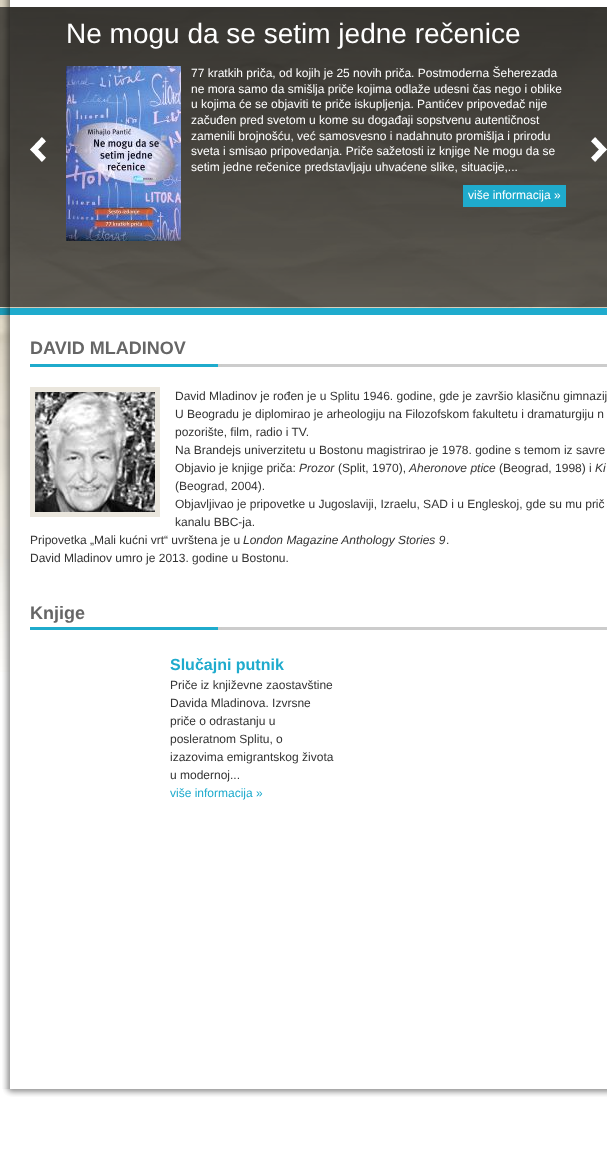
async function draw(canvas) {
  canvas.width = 607
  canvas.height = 1163
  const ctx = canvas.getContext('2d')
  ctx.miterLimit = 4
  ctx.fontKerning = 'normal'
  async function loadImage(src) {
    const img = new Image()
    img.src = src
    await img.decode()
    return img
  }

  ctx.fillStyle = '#fff'
  ctx.fillRect(0, 0, 607, 1163)
  ctx.drawImage(await loadImage('image0.png'), 0, 0, 10, 672)
  ctx.drawImage(await loadImage('image1.png'), 3, 1089, 604, 8)
  ctx.drawImage(await loadImage('image2.png'), 2, 0, 605, 7)
  ctx.drawImage(await loadImage('image3.png'), 2, 7, 605, 308)
  ctx.drawImage(await loadImage('image4.png'), 30, 137, 16, 25)
  ctx.font = '28px Liberation Sans'
  ctx.fillText('Ne mogu da se setim jedne rečenice', 66, 43)
  ctx.drawImage(await loadImage('image5.png'), 66, 66, 115, 175)
  ctx.font = '12px Liberation Sans'
  ctx.fillText('77 kratkih priča, od kojih je 25 novih priča. Postmoderna Šeherezada', 191, 77)
  ctx.fillText('ne mora samo da smišlja priče kojima odlaže udesni čas nego i oblike', 191, 93)
  ctx.fillText('u kojima će se objaviti te priče iskupljenja. Pantićev pripovedač nije', 191, 108)
  ctx.fillText('začuđen pred svetom u kome su događaji sopstvenu autentičnost', 191, 124)
  ctx.fillText('zamenili brojnošću, već samosvesno i nadahnuto promišlja i prirodu', 191, 140)
  ctx.fillText('sveta i smisao pripovedanja. Priče sažetosti iz knjige Ne mogu da se', 191, 155)
  ctx.fillText('setim jedne rečenice predstavljaju uhvaćene slike, situacije,...', 191, 171)
  ctx.fillStyle = '#1fabcd'
  ctx.fillRect(463, 185, 103, 22)
  ctx.fillStyle = '#fff'
  ctx.fillText('više informacija »', 468, 199)
  ctx.drawImage(await loadImage('image6.png'), 591, 137, 16, 25)
  ctx.drawImage(await loadImage('image7.png'), 2, 315, 605, 774)
  ctx.drawImage(await loadImage('image8.png'), 30, 364, 577, 3)
  ctx.font = 'bold 18px Liberation Sans'
  ctx.fillStyle = '#666'
  ctx.fillText('DAVID MLADINOV', 30, 354)
  ctx.fillStyle = '#eae6dd'
  ctx.fillRect(30, 387, 130, 130)
  ctx.drawImage(await loadImage('image9.png'), 35, 392, 120, 120)
  ctx.font = '12px Liberation Sans'
  ctx.fillStyle = '#333'
  ctx.fillText('David Mladinov je rođen je u Splitu 1946. godine, gde je završio klasičnu gimnazij', 175, 400)
  ctx.fillText('U Beogradu je diplomirao je arheologiju na Filozofskom fakultetu i dramaturgiju n', 175, 418)
  ctx.fillText('pozorište, film, radio i TV.', 175, 436)
  ctx.fillText('Na Brandejs univerzitetu u Bostonu magistrirao je 1978. godine s temom iz savre', 175, 454)
  ctx.fillText('Objavio je knjige priča:', 175, 472)
  ctx.font = 'italic 12px Liberation Sans'
  ctx.fillText('Prozor', 299, 472)
  ctx.font = '12px Liberation Sans'
  ctx.fillText('(Split, 1970),', 338, 472)
  ctx.font = 'italic 12px Liberation Sans'
  ctx.fillText('Aheronove ptice', 409, 472)
  ctx.font = '12px Liberation Sans'
  ctx.fillText('(Beograd, 1998) i', 499, 472)
  ctx.font = 'italic 12px Liberation Sans'
  ctx.fillText('Ki', 595, 472)
  ctx.font = '12px Liberation Sans'
  ctx.fillText('(Beograd, 2004).', 175, 490)
  ctx.fillText('Objavljivao je pripovetke u Jugoslaviji, Izraelu, SAD i u Engleskoj, gde su mu prič', 175, 508)
  ctx.fillText('kanalu BBC-ja.', 175, 526)
  ctx.fillText('Pripovetka „Mali kućni vrt“ uvrštena je u', 30, 544)
  ctx.font = 'italic 12px Liberation Sans'
  ctx.fillText('London Magazine Anthology Stories 9', 243, 544)
  ctx.font = '12px Liberation Sans'
  ctx.fillText('.', 446, 544)
  ctx.fillText('David Mladinov umro je 2013. godine u Bostonu.', 30, 562)
  ctx.drawImage(await loadImage('image8.png'), 30, 627, 577, 3)
  ctx.font = 'bold 18px Liberation Sans'
  ctx.fillStyle = '#666'
  ctx.fillText('Knjige', 30, 619)
  ctx.font = 'bold 16px Liberation Sans'
  ctx.fillStyle = '#1fabcd'
  ctx.fillText('Slučajni putnik', 170, 670)
  ctx.font = '12px Liberation Sans'
  ctx.fillStyle = '#333'
  ctx.fillText('Priče iz književne zaostavštine', 170, 689)
  ctx.fillText('Davida Mladinova. Izvrsne', 170, 707)
  ctx.fillText('priče o odrastanju u', 170, 725)
  ctx.fillText('posleratnom Splitu, o', 170, 743)
  ctx.fillText('izazovima emigrantskog života', 170, 761)
  ctx.fillText('u modernoj...', 170, 779)
  ctx.fillStyle = '#1fabcd'
  ctx.fillText('više informacija »', 170, 797)
}

draw(document.querySelector('canvas'))
